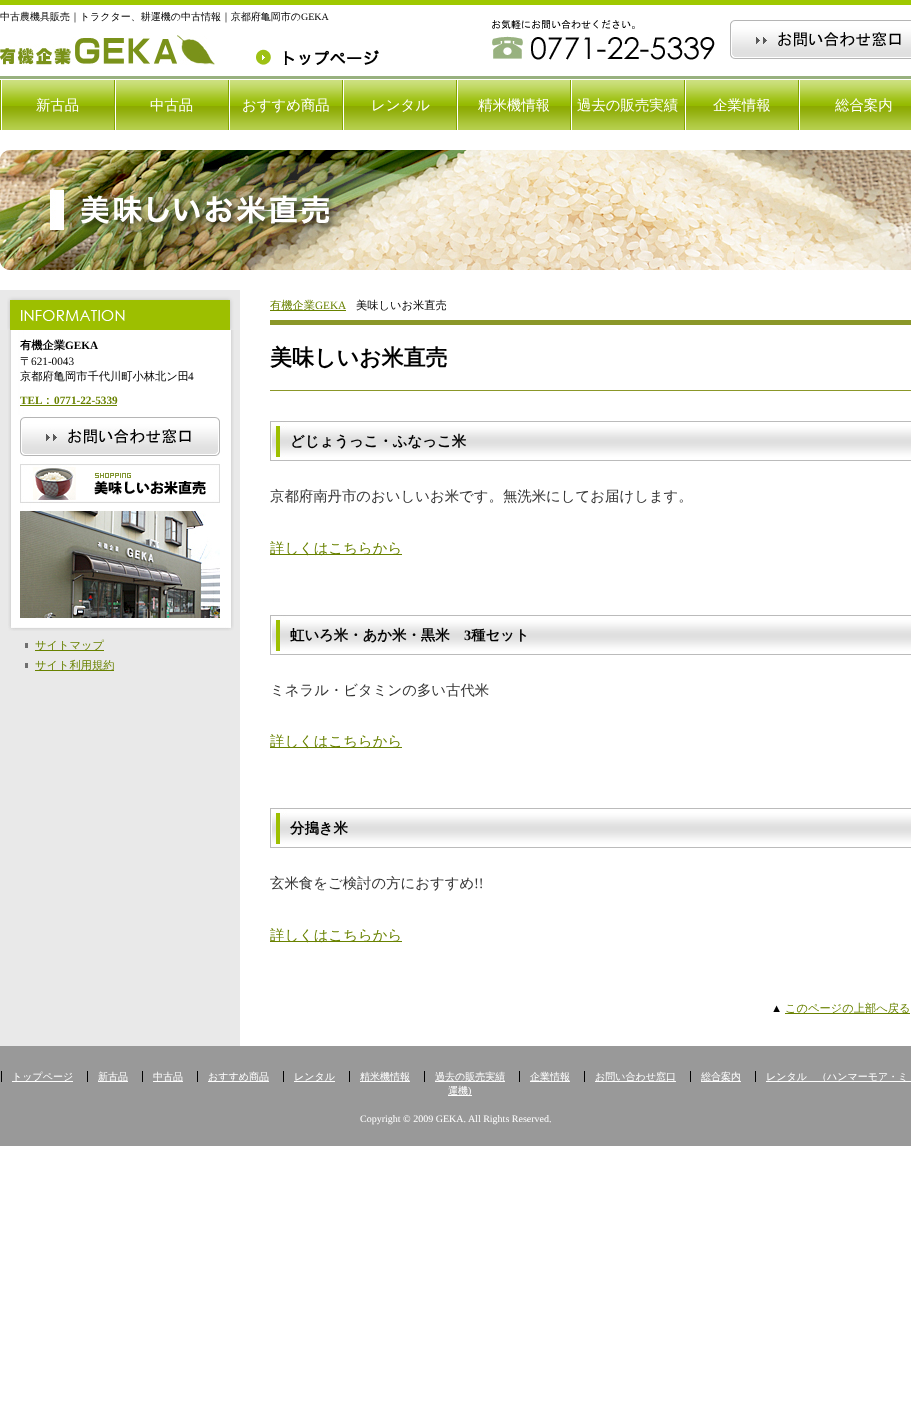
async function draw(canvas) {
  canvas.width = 911
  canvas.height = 1413
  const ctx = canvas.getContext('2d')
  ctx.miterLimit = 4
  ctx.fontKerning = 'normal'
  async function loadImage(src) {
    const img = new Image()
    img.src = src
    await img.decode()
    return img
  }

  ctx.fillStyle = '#fff'
  ctx.fillRect(0, 0, 911, 1413)
  ctx.drawImage(await loadImage('image0.png'), 0, 0, 911, 130)
  ctx.font = '500 10px WenQuanYi Zen Hei'
  ctx.fillStyle = '#000'
  ctx.fillText('中古農機具販売｜トラクター、耕運機の中古情報｜京都府亀岡市の', 0, 20)
  ctx.font = '10px Liberation Serif'
  ctx.fillText('GEKA', 301, 20)
  ctx.drawImage(await loadImage('image1.png'), 0, 35, 215, 30)
  ctx.drawImage(await loadImage('image2.png'), 256, 49, 123, 16)
  ctx.drawImage(await loadImage('image3.png'), 492, 20, 223, 40)
  ctx.drawImage(await loadImage('image4.png'), 730, 20, 181, 39)
  ctx.fillStyle = '#84a500'
  ctx.fillRect(0, 80, 1, 50)
  ctx.fillRect(114, 80, 1, 50)
  ctx.fillStyle = '#fff'
  ctx.fillRect(1, 80, 1, 50)
  ctx.font = '500 14.4px WenQuanYi Zen Hei'
  ctx.fillText('新古品', 36, 110)
  ctx.fillStyle = '#84a500'
  ctx.fillRect(228, 80, 1, 50)
  ctx.fillStyle = '#fff'
  ctx.fillRect(115, 80, 1, 50)
  ctx.fillText('中古品', 150, 110)
  ctx.fillStyle = '#84a500'
  ctx.fillRect(342, 80, 1, 50)
  ctx.fillStyle = '#fff'
  ctx.fillRect(229, 80, 1, 50)
  ctx.fillText('おすすめ商品', 242, 110)
  ctx.fillStyle = '#84a500'
  ctx.fillRect(456, 80, 1, 50)
  ctx.fillStyle = '#fff'
  ctx.fillRect(343, 80, 1, 50)
  ctx.fillText('レンタル', 371, 110)
  ctx.fillStyle = '#84a500'
  ctx.fillRect(570, 80, 1, 50)
  ctx.fillStyle = '#fff'
  ctx.fillRect(457, 80, 1, 50)
  ctx.fillText('精米機情報', 478, 110)
  ctx.fillStyle = '#84a500'
  ctx.fillRect(684, 80, 1, 50)
  ctx.fillStyle = '#fff'
  ctx.fillRect(571, 80, 1, 50)
  ctx.fillText('過去の販売実績', 577, 110)
  ctx.fillStyle = '#84a500'
  ctx.fillRect(798, 80, 1, 50)
  ctx.fillStyle = '#fff'
  ctx.fillRect(685, 80, 1, 50)
  ctx.fillText('企業情報', 713, 110)
  ctx.fillRect(799, 80, 1, 50)
  ctx.fillText('総合案内', 835, 110)
  ctx.drawImage(await loadImage('image5.png'), 0, 150, 911, 120)
  ctx.fillStyle = '#e9e9e9'
  ctx.fillRect(0, 290, 240, 756)
  ctx.drawImage(await loadImage('image6.png'), 8, 330, 226, 301)
  ctx.drawImage(await loadImage('image7.png'), 7, 290, 227, 40)
  ctx.font = 'bold 11.25px WenQuanYi Zen Hei'
  ctx.fillStyle = '#000'
  ctx.fillText('有機企業', 20, 349)
  ctx.font = 'bold 11.25px Liberation Serif'
  ctx.fillText('GEKA', 65, 349)
  ctx.font = '500 11.25px WenQuanYi Zen Hei'
  ctx.fillText('〒', 20, 365)
  ctx.font = '11.25px Liberation Serif'
  ctx.fillText('621-0043', 31, 365)
  ctx.font = '500 11.25px WenQuanYi Zen Hei'
  ctx.fillText('京都府亀岡市千代川町小林北ン田', 20, 380)
  ctx.font = '11.25px Liberation Serif'
  ctx.fillText('4', 188, 380)
  ctx.font = 'bold 11.25px Liberation Serif'
  ctx.fillStyle = '#698200'
  ctx.fillText('TEL', 20, 404)
  ctx.font = 'bold 11.25px WenQuanYi Zen Hei'
  ctx.fillText('：', 42, 404)
  ctx.fillRect(20, 405, 97, 1)
  ctx.font = 'bold 11.25px Liberation Serif'
  ctx.fillText('0771-22-5339', 54, 404)
  ctx.drawImage(await loadImage('image8.png'), 20, 417, 200, 39)
  ctx.drawImage(await loadImage('image9.png'), 20, 464, 200, 39)
  ctx.drawImage(await loadImage('image10.png'), 20, 511, 200, 107)
  ctx.fillStyle = '#707070'
  ctx.fillRect(25, 643, 3, 5)
  ctx.fillStyle = '#698200'
  ctx.fillRect(35, 650, 69, 1)
  ctx.font = '500 11.25px WenQuanYi Zen Hei'
  ctx.fillText('サイトマップ', 35, 649)
  ctx.fillStyle = '#707070'
  ctx.fillRect(25, 663, 3, 5)
  ctx.fillStyle = '#698200'
  ctx.fillRect(35, 670, 79, 1)
  ctx.fillText('サイト利用規約', 35, 669)
  ctx.fillRect(270, 310, 76, 1)
  ctx.fillText('有機企業', 270, 309)
  ctx.font = '11.25px Liberation Serif'
  ctx.fillText('GEKA', 315, 309)
  ctx.font = '500 11.25px WenQuanYi Zen Hei'
  ctx.fillStyle = '#000'
  ctx.fillText('美味しいお米直売', 356, 309)
  ctx.fillStyle = '#8b9729'
  ctx.fillRect(270, 320, 641, 5)
  ctx.fillRect(270, 390, 641, 1)
  ctx.font = 'bold 22px WenQuanYi Zen Hei'
  ctx.fillStyle = '#000'
  ctx.fillText('美味しいお米直売', 270, 365)
  ctx.drawImage(await loadImage('image11.png'), 270, 421, 641, 40)
  ctx.font = 'bold 14.4px WenQuanYi Zen Hei'
  ctx.fillText('どじょうっこ・ふなっこ米', 290, 446)
  ctx.font = '500 14.4px WenQuanYi Zen Hei'
  ctx.fillStyle = '#333'
  ctx.fillText('京都府南丹市のおいしいお米です。無洗米にしてお届けします。', 270, 501)
  ctx.fillStyle = '#698200'
  ctx.fillRect(270, 554, 132, 1)
  ctx.fillText('詳しくはこちらから', 270, 553)
  ctx.drawImage(await loadImage('image11.png'), 270, 615, 641, 40)
  ctx.font = 'bold 14.4px WenQuanYi Zen Hei'
  ctx.fillStyle = '#000'
  ctx.fillText('虹いろ米・あか米・黒米', 290, 640)
  ctx.font = 'bold 14.4px Liberation Serif'
  ctx.fillText('3', 464, 640)
  ctx.font = 'bold 14.4px WenQuanYi Zen Hei'
  ctx.fillText('種セット', 471, 640)
  ctx.font = '500 14.4px WenQuanYi Zen Hei'
  ctx.fillStyle = '#333'
  ctx.fillText('ミネラル・ビタミンの多い古代米', 270, 695)
  ctx.fillStyle = '#698200'
  ctx.fillRect(270, 747, 132, 1)
  ctx.fillText('詳しくはこちらから', 270, 746)
  ctx.drawImage(await loadImage('image11.png'), 270, 808, 641, 40)
  ctx.font = 'bold 14.4px WenQuanYi Zen Hei'
  ctx.fillStyle = '#000'
  ctx.fillText('分搗き米', 290, 833)
  ctx.font = '500 14.4px WenQuanYi Zen Hei'
  ctx.fillStyle = '#333'
  ctx.fillText('玄米食をご検討の方におすすめ', 270, 888)
  ctx.font = '14.4px Liberation Serif'
  ctx.fillText('!!', 474, 888)
  ctx.fillStyle = '#698200'
  ctx.fillRect(270, 941, 132, 1)
  ctx.font = '500 14.4px WenQuanYi Zen Hei'
  ctx.fillText('詳しくはこちらから', 270, 940)
  ctx.font = '11.25px Liberation Serif'
  ctx.fillStyle = '#000'
  ctx.fillText('▲', 771, 1012)
  ctx.fillStyle = '#698200'
  ctx.fillRect(785, 1013, 125, 1)
  ctx.font = '500 11.25px WenQuanYi Zen Hei'
  ctx.fillText('このページの上部へ戻る', 785, 1012)
  ctx.fillStyle = '#999'
  ctx.fillRect(0, 1046, 911, 100)
  ctx.fillStyle = '#fff'
  ctx.fillRect(12, 1081, 61, 1)
  ctx.font = '500 10px WenQuanYi Zen Hei'
  ctx.fillText('トップページ', 12, 1080)
  ctx.fillStyle = '#000'
  ctx.fillRect(1, 1071, 1, 11)
  ctx.fillStyle = '#fff'
  ctx.fillRect(98, 1081, 30, 1)
  ctx.fillText('新古品', 98, 1080)
  ctx.fillStyle = '#000'
  ctx.fillRect(87, 1071, 1, 11)
  ctx.fillStyle = '#fff'
  ctx.fillRect(153, 1081, 30, 1)
  ctx.fillText('中古品', 153, 1080)
  ctx.fillStyle = '#000'
  ctx.fillRect(142, 1071, 1, 11)
  ctx.fillStyle = '#fff'
  ctx.fillRect(208, 1081, 61, 1)
  ctx.fillText('おすすめ商品', 208, 1080)
  ctx.fillStyle = '#000'
  ctx.fillRect(197, 1071, 1, 11)
  ctx.fillStyle = '#fff'
  ctx.fillRect(294, 1081, 41, 1)
  ctx.fillText('レンタル', 294, 1080)
  ctx.fillStyle = '#000'
  ctx.fillRect(283, 1071, 1, 11)
  ctx.fillStyle = '#fff'
  ctx.fillRect(360, 1081, 50, 1)
  ctx.fillText('精米機情報', 360, 1080)
  ctx.fillStyle = '#000'
  ctx.fillRect(349, 1071, 1, 11)
  ctx.fillStyle = '#fff'
  ctx.fillRect(435, 1081, 70, 1)
  ctx.fillText('過去の販売実績', 435, 1080)
  ctx.fillStyle = '#000'
  ctx.fillRect(424, 1071, 1, 11)
  ctx.fillStyle = '#fff'
  ctx.fillRect(530, 1081, 40, 1)
  ctx.fillText('企業情報', 530, 1080)
  ctx.fillStyle = '#000'
  ctx.fillRect(519, 1071, 1, 11)
  ctx.fillStyle = '#fff'
  ctx.fillRect(595, 1081, 81, 1)
  ctx.fillText('お問い合わせ窓口', 595, 1080)
  ctx.fillStyle = '#000'
  ctx.fillRect(584, 1071, 1, 11)
  ctx.fillStyle = '#fff'
  ctx.fillRect(701, 1081, 40, 1)
  ctx.fillText('総合案内', 701, 1080)
  ctx.fillStyle = '#000'
  ctx.fillRect(690, 1071, 1, 11)
  ctx.fillStyle = '#fff'
  ctx.fillRect(766, 1081, 145, 1)
  ctx.fillText('レンタル　（ハンマーモア・ミ', 766, 1080)
  ctx.fillStyle = '#000'
  ctx.fillRect(755, 1071, 1, 11)
  ctx.fillStyle = '#fff'
  ctx.fillRect(448, 1095, 24, 1)
  ctx.fillText('運機', 448, 1094)
  ctx.font = '10px Liberation Serif'
  ctx.fillText(')', 468, 1094)
  ctx.fillText('Copyright © 2009 GEKA. All Rights Reserved.', 360, 1122)
}

draw(document.querySelector('canvas'))
